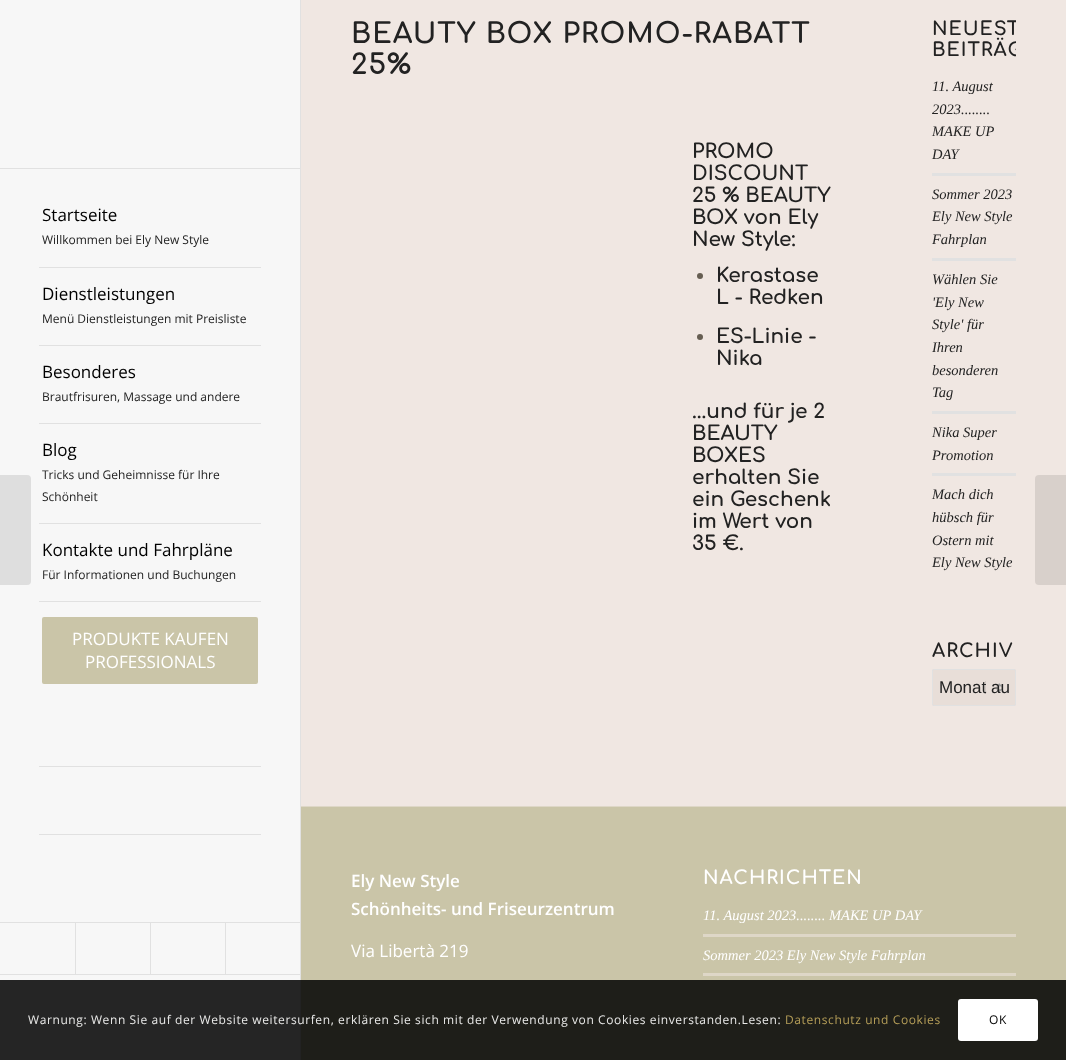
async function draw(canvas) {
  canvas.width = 1066
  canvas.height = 1060
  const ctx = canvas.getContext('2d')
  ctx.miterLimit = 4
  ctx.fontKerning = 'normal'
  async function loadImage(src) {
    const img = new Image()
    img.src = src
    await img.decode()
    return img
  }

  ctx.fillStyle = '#f7f7f7'
  ctx.fillRect(0, 0, 1066, 1060)
  ctx.fillStyle = '#dedede'
  ctx.beginPath()
  ctx.roundRect(0, 475, 31, 110, [0, 4, 4, 0])
  ctx.fill()
  ctx.fillStyle = '#e1e1e1'
  ctx.fillRect(0, 974, 300, 1)
  ctx.fillRect(0, 168, 300, 1)
  ctx.fillRect(39, 267, 222, 1)
  ctx.font = '17px Open Sans'
  ctx.fillStyle = '#000'
  ctx.fillText('Startseite', 42, 221)
  ctx.font = '12px Open Sans'
  ctx.fillStyle = '#222'
  ctx.fillText('Willkommen bei Ely New Style', 42, 244)
  ctx.fillStyle = '#e1e1e1'
  ctx.fillRect(39, 345, 222, 1)
  ctx.font = '17px Open Sans'
  ctx.fillStyle = '#000'
  ctx.fillText('Dienstleistungen', 42, 300)
  ctx.font = '12px Open Sans'
  ctx.fillStyle = '#222'
  ctx.fillText('Menü Dienstleistungen mit Preisliste', 42, 323)
  ctx.fillStyle = '#e1e1e1'
  ctx.fillRect(39, 423, 222, 1)
  ctx.font = '17px Open Sans'
  ctx.fillStyle = '#000'
  ctx.fillText('Besonderes', 42, 378)
  ctx.font = '12px Open Sans'
  ctx.fillStyle = '#222'
  ctx.fillText('Brautfrisuren, Massage und andere', 42, 401)
  ctx.fillStyle = '#e1e1e1'
  ctx.fillRect(39, 523, 222, 1)
  ctx.font = '17px Open Sans'
  ctx.fillStyle = '#000'
  ctx.fillText('Blog', 42, 456)
  ctx.font = '12px Open Sans'
  ctx.fillStyle = '#222'
  ctx.fillText('Tricks und Geheimnisse für Ihre', 42, 479)
  ctx.fillText('Schönheit', 42, 501)
  ctx.fillStyle = '#e1e1e1'
  ctx.fillRect(39, 601, 222, 1)
  ctx.font = '17px Open Sans'
  ctx.fillStyle = '#000'
  ctx.fillText('Kontakte und Fahrpläne', 42, 556)
  ctx.font = '12px Open Sans'
  ctx.fillStyle = '#222'
  ctx.fillText('Für Informationen und Buchungen', 42, 579)
  ctx.fillStyle = '#cac5a8'
  ctx.beginPath()
  ctx.roundRect(43, 618, 214, 65, 1)
  ctx.fill()
  ctx.strokeStyle = '#cac5a8'
  ctx.lineWidth = 2
  ctx.stroke()
  ctx.font = '17px Open Sans'
  ctx.fillStyle = '#fff'
  ctx.fillText('PRODUKTE KAUFEN', 72, 645)
  ctx.fillText('PROFESSIONALS', 85, 668)
  ctx.fillStyle = '#e1e1e1'
  ctx.fillRect(39, 766, 222, 1)
  ctx.fillRect(39, 834, 222, 1)
  ctx.fillRect(0, 922, 300, 1)
  ctx.fillRect(75, 923, 1, 51)
  ctx.fillRect(150, 923, 1, 51)
  ctx.fillRect(225, 923, 1, 51)
  ctx.fillRect(300, 0, 1, 1060)
  ctx.fillStyle = '#f0e7e2'
  ctx.fillRect(301, 0, 765, 806)
  ctx.letterSpacing = '1px'
  ctx.font = 'bold 28px Comfortaa'
  ctx.fillStyle = '#222'
  ctx.fillText('BEAUTY BOX PROMO-RABATT', 351, 43)
  ctx.fillText('25%', 351, 74)
  ctx.letterSpacing = '0px'
  ctx.font = 'bold 20px Comfortaa'
  ctx.fillText('PROMO', 692, 158)
  ctx.fillText('DISCOUNT', 692, 180)
  ctx.fillText('25 % BEAUTY', 692, 202)
  ctx.fillText('BOX von Ely', 692, 224)
  ctx.fillText('New Style:', 692, 246)
  ctx.fillStyle = '#665e52'
  ctx.beginPath()
  ctx.arc(700, 276, 3, 0, 2 * Math.PI)
  ctx.fill()
  ctx.fillStyle = '#222'
  ctx.fillText('Kerastase', 716, 282)
  ctx.fillText('L - Redken', 716, 304)
  ctx.fillStyle = '#665e52'
  ctx.beginPath()
  ctx.arc(700, 337, 3, 0, 2 * Math.PI)
  ctx.fill()
  ctx.fillStyle = '#222'
  ctx.fillText('ES-Linie -', 716, 343)
  ctx.fillText('Nika', 716, 365)
  ctx.fillText('...und für je 2', 692, 418)
  ctx.fillText('BEAUTY', 692, 440)
  ctx.fillText('BOXES', 692, 462)
  ctx.fillText('erhalten Sie', 692, 484)
  ctx.fillText('ein Geschenk', 692, 506)
  ctx.fillText('im Wert von', 692, 528)
  ctx.fillText('35 €.', 692, 550)
  ctx.save()
  ctx.beginPath()
  ctx.rect(882, 0, 134, 806)
  ctx.clip()
  ctx.letterSpacing = '1px'
  ctx.font = 'bold 18.75px Comfortaa'
  ctx.fillText('NEUEST', 932, 35)
  ctx.fillText('BEITRÄG', 932, 56)
  ctx.restore()
  ctx.font = 'italic 14.5px Liberation Serif'
  ctx.fillText('11. August', 932, 91)
  ctx.fillText('2023........', 932, 114)
  ctx.fillText('MAKE UP', 932, 136)
  ctx.fillText('DAY', 932, 159)
  ctx.fillStyle = '#e1e1e1'
  ctx.fillRect(932, 173, 84, 3)
  ctx.fillStyle = '#222'
  ctx.fillText('Sommer 2023', 932, 199)
  ctx.fillText('Ely New Style', 932, 221)
  ctx.fillText('Fahrplan', 932, 244)
  ctx.fillStyle = '#e1e1e1'
  ctx.fillRect(932, 258, 84, 3)
  ctx.fillStyle = '#222'
  ctx.fillText('Wählen Sie', 932, 284)
  ctx.fillText('\'Ely New', 932, 307)
  ctx.fillText('Style\' für', 932, 329)
  ctx.fillText('Ihren', 932, 352)
  ctx.fillText('besonderen', 932, 375)
  ctx.fillText('Tag', 932, 397)
  ctx.fillStyle = '#e1e1e1'
  ctx.fillRect(932, 411, 84, 3)
  ctx.fillStyle = '#222'
  ctx.fillText('Nika Super', 932, 437)
  ctx.fillText('Promotion', 932, 460)
  ctx.fillStyle = '#e1e1e1'
  ctx.fillRect(932, 473, 84, 3)
  ctx.fillStyle = '#222'
  ctx.fillText('Mach dich', 932, 499)
  ctx.fillText('hübsch für', 932, 522)
  ctx.fillText('Ostern mit', 932, 545)
  ctx.fillText('Ely New Style', 932, 567)
  ctx.letterSpacing = '1px'
  ctx.font = 'bold 18.75px Comfortaa'
  ctx.fillText('ARCHIV', 932, 657)
  ctx.fillStyle = '#e8ded8'
  ctx.beginPath()
  ctx.roundRect(932, 669, 84, 37, 2)
  ctx.fill()
  ctx.drawImage(await loadImage('image0.png'), 985, 681, 18, 13)
  ctx.beginPath()
  ctx.roundRect(932.5, 669.5, 83, 36, 1.5)
  ctx.strokeStyle = '#e1e1e1'
  ctx.lineWidth = 1
  ctx.stroke()
  ctx.letterSpacing = '0px'
  ctx.font = '17px Liberation Sans'
  ctx.fillStyle = '#222'
  ctx.fillText('Monat au', 939, 693)
  ctx.fillStyle = '#cac5a8'
  ctx.fillRect(301, 807, 765, 253)
  ctx.fillStyle = '#ded7c7'
  ctx.fillRect(301, 806, 765, 1)
  ctx.font = '600 17px Open Sans'
  ctx.fillStyle = '#fff'
  ctx.fillText('Ely New Style', 351, 887)
  ctx.fillText('Schönheits- und Friseurzentrum', 351, 915)
  ctx.font = '17px Open Sans'
  ctx.fillText('Via Libertà 219', 351, 957)
  ctx.letterSpacing = '1px'
  ctx.font = 'bold 18.75px Comfortaa'
  ctx.fillText('NACHRICHTEN', 703, 884)
  ctx.letterSpacing = '0px'
  ctx.font = 'italic 14.5px Liberation Serif'
  ctx.fillText('11. August 2023........ MAKE UP DAY', 703, 920)
  ctx.fillStyle = '#ded7c7'
  ctx.fillRect(703, 934, 313, 3)
  ctx.fillStyle = '#fff'
  ctx.fillText('Sommer 2023 Ely New Style Fahrplan', 703, 960)
  ctx.fillStyle = '#ded7c7'
  ctx.fillRect(703, 973, 313, 3)
  ctx.fillStyle = '#d8d0cb'
  ctx.beginPath()
  ctx.roundRect(1035, 475, 31, 110, [4, 0, 0, 4])
  ctx.fill()
  ctx.fillStyle = '#000000d9'
  ctx.fillRect(0, 980, 1066, 80)
  ctx.letterSpacing = '0.6px'
  ctx.font = '12px Open Sans'
  ctx.fillStyle = '#e9e9e8'
  ctx.fillText('Warnung: Wenn Sie auf der Website weitersurfen, erklären Sie sich mit der Verwendung von Cookies einverstanden.Lesen:', 28, 1024)
  ctx.fillStyle = '#b69f59'
  ctx.fillText('Datenschutz und Cookies', 785, 1024)
  ctx.fillStyle = '#fff'
  ctx.beginPath()
  ctx.roundRect(958, 999, 80, 42, 3)
  ctx.fill()
  ctx.fillStyle = '#000'
  ctx.fillText('OK', 989, 1024)
}

draw(document.querySelector('canvas'))
